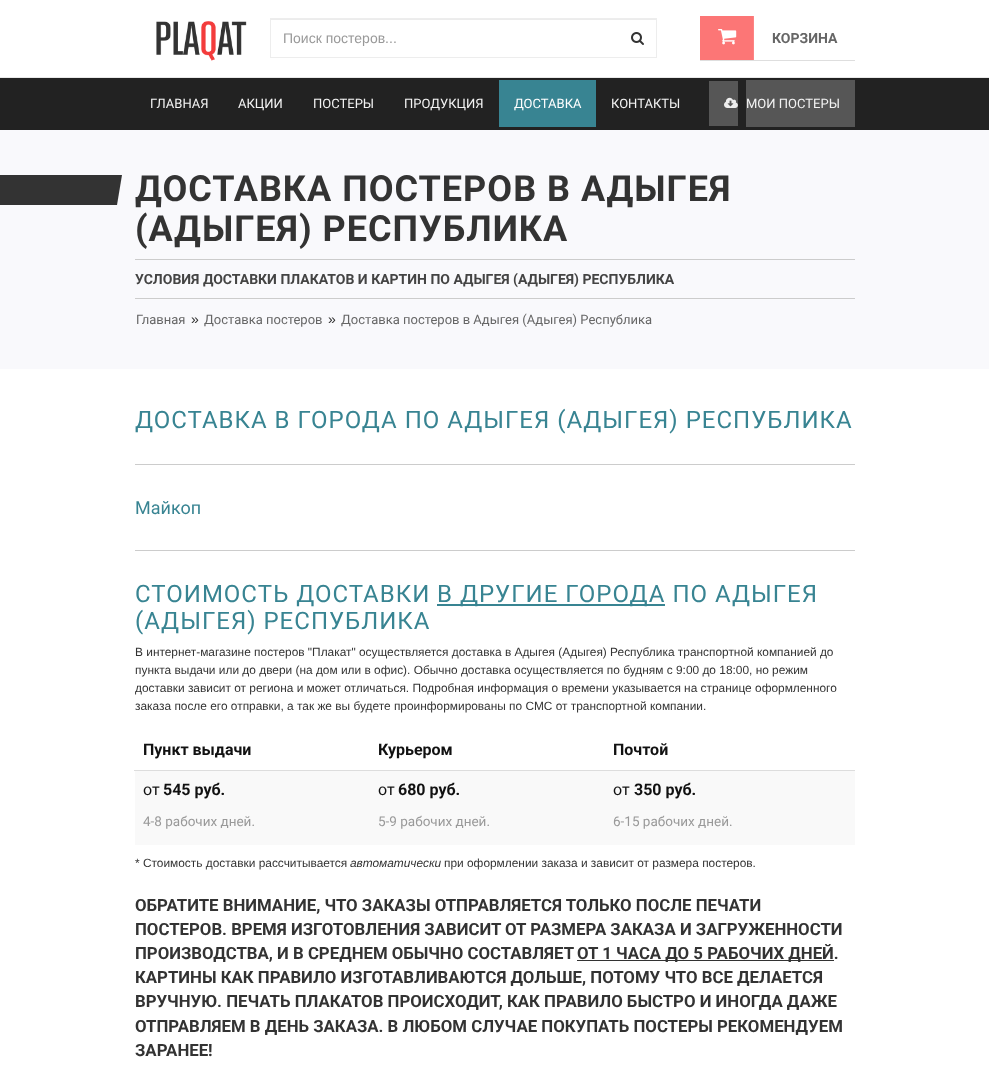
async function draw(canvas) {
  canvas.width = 989
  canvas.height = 1089
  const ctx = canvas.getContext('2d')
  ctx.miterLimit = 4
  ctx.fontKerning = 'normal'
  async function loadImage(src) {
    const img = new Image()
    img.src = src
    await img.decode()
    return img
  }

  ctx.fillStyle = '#fff'
  ctx.fillRect(0, 0, 989, 1089)
  ctx.drawImage(await loadImage('image0.png'), 156, 21, 91, 40)
  ctx.fillStyle = '#ececec'
  ctx.fillRect(271, 19, 385, 1)
  ctx.strokeStyle = '#ededed'
  ctx.strokeRect(270.5, 18.5, 386, 39)
  ctx.font = '14px Liberation Sans'
  ctx.fillStyle = '#999'
  ctx.fillText('Поиск постеров...', 283, 43)
  ctx.drawImage(await loadImage('image1.png'), 631, 32, 13, 13)
  ctx.save()
  ctx.beginPath()
  ctx.moveTo(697, 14)
  ctx.lineTo(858, 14)
  ctx.lineTo(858, 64)
  ctx.lineTo(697, 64)
  ctx.closePath()
  ctx.moveTo(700, 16)
  ctx.lineTo(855, 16)
  ctx.lineTo(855, 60)
  ctx.lineTo(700, 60)
  ctx.closePath()
  ctx.clip('evenodd')
  ctx.fillStyle = '#dedede'
  ctx.filter = 'blur(0.5px)'
  ctx.beginPath()
  ctx.rect(700, 17, 155, 44)
  ctx.fill()
  ctx.filter = 'none'
  ctx.restore()
  ctx.fillStyle = '#fc7676'
  ctx.fillRect(700, 16, 53, 44)
  ctx.fillStyle = '#fc8484'
  ctx.fillRect(753, 16, 1, 44)
  ctx.drawImage(await loadImage('image2.png'), 718, 29, 19, 16)
  ctx.font = 'bold 14px Roboto'
  ctx.fillStyle = '#666'
  ctx.fillText('КОРЗИНА', 772, 43)
  ctx.fillStyle = '#222'
  ctx.fillRect(0, 78, 989, 52)
  ctx.fillStyle = '#e9e9e9'
  ctx.fillRect(0, 77, 989, 1)
  ctx.font = '13px Roboto'
  ctx.fillStyle = '#f3f3f3'
  ctx.fillText('ГЛАВНАЯ', 150, 108)
  ctx.fillText('АКЦИИ', 238, 108)
  ctx.fillText('ПОСТЕРЫ', 313, 108)
  ctx.fillText('ПРОДУКЦИЯ', 404, 108)
  ctx.fillStyle = '#388492'
  ctx.fillRect(499, 80, 97, 47)
  ctx.fillStyle = '#fff'
  ctx.fillText('ДОСТАВКА', 514, 108)
  ctx.fillStyle = '#f3f3f3'
  ctx.fillText('КОНТАКТЫ', 611, 108)
  ctx.fillStyle = '#565656'
  ctx.fillRect(709, 81, 29, 45)
  ctx.fillRect(746, 80, 109, 47)
  ctx.drawImage(await loadImage('image3.png'), 724, 97, 14, 11)
  ctx.fillStyle = '#f3f3f3'
  ctx.fillText('МОИ ПОСТЕРЫ', 746, 108)
  ctx.fillStyle = '#f9f9fc'
  ctx.fillRect(0, 130, 989, 239)
  ctx.fillStyle = '#333'
  ctx.beginPath()
  ctx.moveTo(-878, 175)
  ctx.lineTo(122, 175)
  ctx.lineTo(117, 205)
  ctx.lineTo(-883, 205)
  ctx.closePath()
  ctx.fill()
  ctx.letterSpacing = '1px'
  ctx.font = 'bold 36px Roboto'
  ctx.fillText('ДОСТАВКА ПОСТЕРОВ В АДЫГЕЯ', 135, 201)
  ctx.fillText('(АДЫГЕЯ) РЕСПУБЛИКА', 135, 241)
  ctx.fillStyle = '#ccc'
  ctx.fillRect(135, 259, 720, 1)
  ctx.letterSpacing = '0px'
  ctx.font = 'bold 14px Roboto'
  ctx.fillStyle = '#444'
  ctx.fillText('УСЛОВИЯ ДОСТАВКИ ПЛАКАТОВ И КАРТИН ПО АДЫГЕЯ (АДЫГЕЯ) РЕСПУБЛИКА', 135, 284)
  ctx.fillStyle = '#ccc'
  ctx.fillRect(135, 298, 720, 1)
  ctx.font = '13px Roboto'
  ctx.fillStyle = '#666'
  ctx.fillText('Главная', 136, 324)
  ctx.font = '14px Liberation Sans'
  ctx.fillStyle = '#333'
  ctx.fillText('»', 191, 324)
  ctx.font = '13px Roboto'
  ctx.fillStyle = '#666'
  ctx.fillText('Доставка постеров', 204, 324)
  ctx.font = '14px Liberation Sans'
  ctx.fillStyle = '#333'
  ctx.fillText('»', 328, 324)
  ctx.font = '13px Roboto'
  ctx.fillStyle = '#666'
  ctx.fillText('Доставка постеров в Адыгея (Адыгея) Республика', 341, 324)
  ctx.letterSpacing = '1px'
  ctx.font = '24px Roboto'
  ctx.fillStyle = '#388492'
  ctx.fillText('ДОСТАВКА В ГОРОДА ПО АДЫГЕЯ (АДЫГЕЯ) РЕСПУБЛИКА', 135, 428)
  ctx.fillStyle = '#ccc'
  ctx.fillRect(135, 464, 720, 1)
  ctx.letterSpacing = '0px'
  ctx.font = '18px Roboto'
  ctx.fillStyle = '#388492'
  ctx.fillText('Майкоп', 135, 514)
  ctx.fillStyle = '#ccc'
  ctx.fillRect(135, 550, 720, 1)
  ctx.letterSpacing = '1px'
  ctx.font = '24px Roboto'
  ctx.fillStyle = '#388492'
  ctx.fillText('СТОИМОСТЬ ДОСТАВКИ', 135, 602)
  ctx.fillRect(437, 604, 228, 2)
  ctx.fillText('В ДРУГИЕ ГОРОДА ПО АДЫГЕЯ', 437, 602)
  ctx.fillText('(АДЫГЕЯ) РЕСПУБЛИКА', 135, 629)
  ctx.letterSpacing = '0px'
  ctx.font = '11.9px Liberation Sans'
  ctx.fillStyle = '#333'
  ctx.fillText('В интернет-магазине постеров "Плакат" осуществляется доставка в Адыгея (Адыгея) Республика транспортной компанией до', 135, 656)
  ctx.fillText('пункта выдачи или до двери (на дом или в офис). Обычно доставка осуществляется по будням с 9:00 до 18:00, но режим', 135, 674)
  ctx.fillText('доставки зависит от региона и может отличаться. Подробная информация о времени указывается на странице оформленного', 135, 692)
  ctx.fillText('заказа после его отправки, а так же вы будете проинформированы по СМС от транспортной компании.', 135, 710)
  ctx.font = 'bold 16px Roboto'
  ctx.fillStyle = '#111'
  ctx.fillText('Пункт выдачи', 143, 755)
  ctx.fillText('Курьером', 378, 755)
  ctx.fillText('Почтой', 613, 755)
  ctx.fillStyle = '#f9f9f9'
  ctx.fillRect(135, 771, 720, 74)
  ctx.font = '16px Roboto'
  ctx.fillStyle = '#111'
  ctx.fillText('от', 143, 795)
  ctx.font = 'bold 16px Roboto'
  ctx.fillText('545 руб.', 163, 795)
  ctx.font = '13.5px Roboto'
  ctx.fillStyle = '#999'
  ctx.fillText('4-8 рабочих дней.', 143, 826)
  ctx.font = '16px Roboto'
  ctx.fillStyle = '#111'
  ctx.fillText('от', 378, 795)
  ctx.font = 'bold 16px Roboto'
  ctx.fillText('680 руб.', 398, 795)
  ctx.font = '13.5px Roboto'
  ctx.fillStyle = '#999'
  ctx.fillText('5-9 рабочих дней.', 378, 826)
  ctx.fillStyle = '#ddd'
  ctx.fillRect(134, 770, 721, 1)
  ctx.font = '16px Roboto'
  ctx.fillStyle = '#111'
  ctx.fillText('от', 613, 795)
  ctx.font = 'bold 16px Roboto'
  ctx.fillText('350 руб.', 634, 795)
  ctx.font = '13.5px Roboto'
  ctx.fillStyle = '#999'
  ctx.fillText('6-15 рабочих дней.', 613, 826)
  ctx.font = '11.9px Liberation Sans'
  ctx.fillStyle = '#333'
  ctx.fillText('* Стоимость доставки рассчитывается', 135, 867)
  ctx.font = 'italic 11.9px Liberation Sans'
  ctx.fillText('автоматически', 350, 867)
  ctx.font = '11.9px Liberation Sans'
  ctx.fillText('при оформлении заказа и зависит от размера постеров.', 444, 867)
  ctx.font = 'bold 16.8px Roboto'
  ctx.fillText('ОБРАТИТЕ ВНИМАНИЕ, ЧТО ЗАКАЗЫ ОТПРАВЛЯЕТСЯ ТОЛЬКО ПОСЛЕ ПЕЧАТИ', 135, 911)
  ctx.fillText('ПОСТЕРОВ. ВРЕМЯ ИЗГОТОВЛЕНИЯ ЗАВИСИТ ОТ РАЗМЕРА ЗАКАЗА И ЗАГРУЖЕННОСТИ', 135, 935)
  ctx.fillText('ПРОИЗВОДСТВА, И В СРЕДНЕМ ОБЫЧНО СОСТАВЛЯЕТ', 135, 959)
  ctx.fillRect(577, 960, 257, 1)
  ctx.fillText('ОТ 1 ЧАСА ДО 5 РАБОЧИХ ДНЕЙ.', 577, 959)
  ctx.fillText('КАРТИНЫ КАК ПРАВИЛО ИЗГОТАВЛИВАЮТСЯ ДОЛЬШЕ, ПОТОМУ ЧТО ВСЕ ДЕЛАЕТСЯ', 135, 983)
  ctx.fillText('ВРУЧНУЮ. ПЕЧАТЬ ПЛАКАТОВ ПРОИСХОДИТ, КАК ПРАВИЛО БЫСТРО И ИНОГДА ДАЖЕ', 135, 1007)
  ctx.fillText('ОТПРАВЛЯЕМ В ДЕНЬ ЗАКАЗА. В ЛЮБОМ СЛУЧАЕ ПОКУПАТЬ ПОСТЕРЫ РЕКОМЕНДУЕМ', 135, 1032)
  ctx.fillText('ЗАРАНЕЕ!', 135, 1056)
}

draw(document.querySelector('canvas'))
